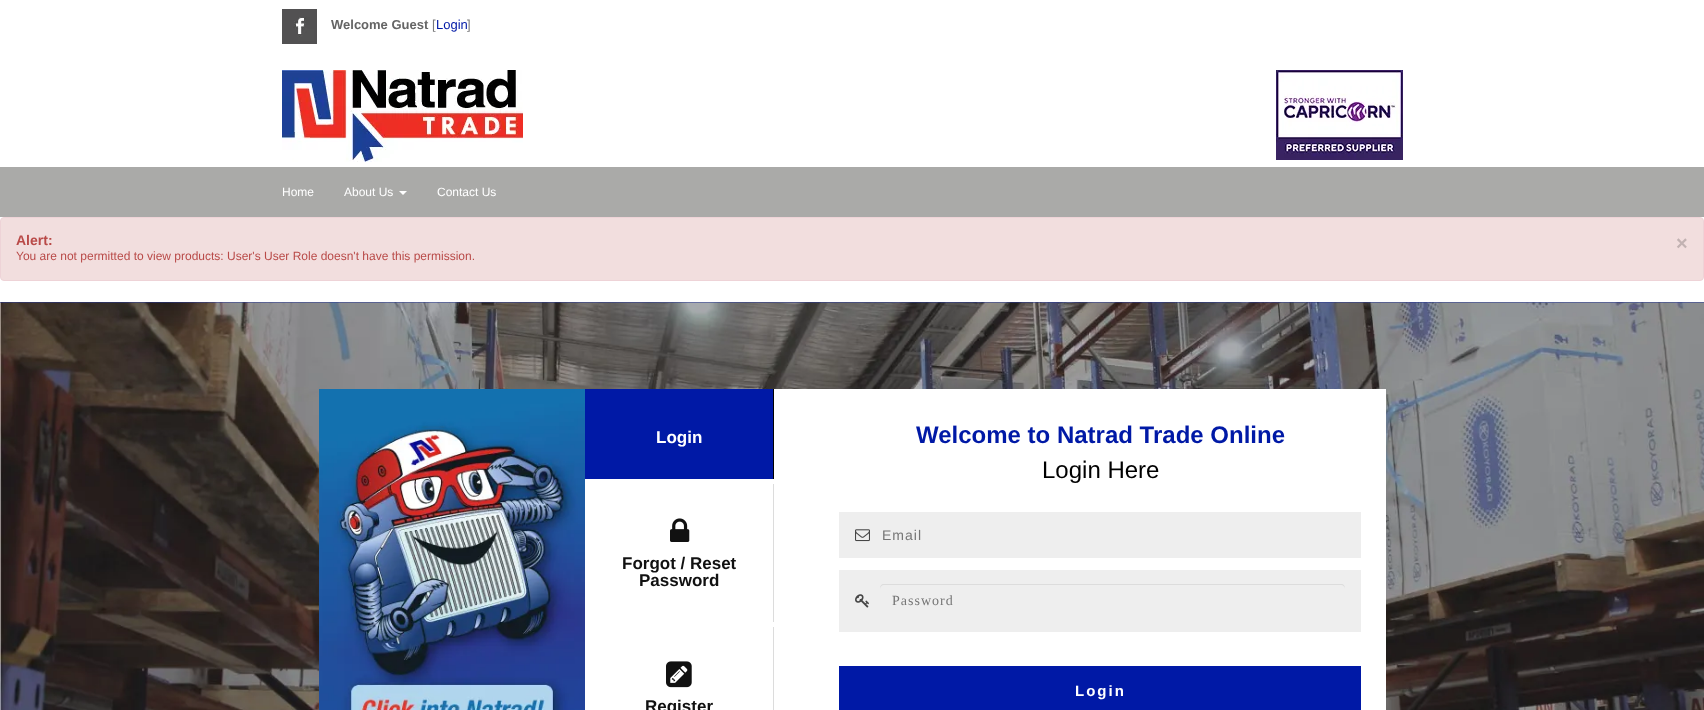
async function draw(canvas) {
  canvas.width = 1704
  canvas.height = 710
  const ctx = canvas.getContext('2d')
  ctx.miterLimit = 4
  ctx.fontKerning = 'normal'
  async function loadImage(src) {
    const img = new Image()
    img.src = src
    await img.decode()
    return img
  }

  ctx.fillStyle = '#fff'
  ctx.fillRect(0, 0, 1704, 710)
  ctx.drawImage(await loadImage('image0.png'), 282, 9, 35, 35)
  ctx.font = 'bold 13px Liberation Sans'
  ctx.fillStyle = '#656565'
  ctx.fillText('Welcome Guest', 331, 29)
  ctx.font = '13px Liberation Sans'
  ctx.fillStyle = '#7a7a7c'
  ctx.fillText('[', 432, 29)
  ctx.fillStyle = '#0019a6'
  ctx.fillText('Login', 436, 29)
  ctx.fillStyle = '#7a7a7c'
  ctx.fillText(']', 467, 29)
  ctx.drawImage(await loadImage('image1.png'), 282, 70, 241, 92)
  ctx.drawImage(await loadImage('image2.png'), 1276, 70, 127, 90)
  ctx.fillStyle = '#aaaaa8'
  ctx.fillRect(0, 167, 1704, 50)
  ctx.font = '12px Liberation Sans'
  ctx.fillStyle = '#fff'
  ctx.fillText('Home', 282, 196)
  ctx.fillText('About Us', 344, 196)
  ctx.beginPath()
  ctx.moveTo(399, 191)
  ctx.lineTo(407, 191)
  ctx.lineTo(403, 195)
  ctx.closePath()
  ctx.fill()
  ctx.fillText('Contact Us', 437, 196)
  ctx.fillStyle = '#f2dede'
  ctx.beginPath()
  ctx.roundRect(0.5, 217.5, 1703, 63, 3.5)
  ctx.fill()
  ctx.strokeStyle = '#eed3d7'
  ctx.stroke()
  ctx.font = 'bold 14px Liberation Sans'
  ctx.fillStyle = '#b94a48'
  ctx.fillText('Alert:', 16, 245)
  ctx.font = 'bold 20px Liberation Sans'
  ctx.fillStyle = '#c2b2b2'
  ctx.fillText('×', 1676, 250)
  ctx.font = '12px Liberation Sans'
  ctx.fillStyle = '#b94a48'
  ctx.fillText('You are not permitted to view products: User\'s User Role doesn\'t have this permission.', 16, 260)
  ctx.drawImage(await loadImage('image3.png'), 0, 302, 1704, 408)
  ctx.fillStyle = '#28389380'
  ctx.fillRect(0, 302, 1704, 1)
  ctx.fillStyle = '#fff'
  ctx.fillRect(585, 389, 801, 321)
  ctx.drawImage(await loadImage('image4.png'), 319, 389, 266, 321)
  ctx.fillStyle = '#0019a6'
  ctx.fillRect(585, 389, 188, 90)
  ctx.fillStyle = '#000'
  ctx.fillRect(773, 389, 1, 90)
  ctx.font = 'bold 17px Liberation Sans'
  ctx.fillStyle = '#fff'
  ctx.fillText('Login', 656, 443)
  ctx.font = 'bold 24px Liberation Sans'
  ctx.fillStyle = '#0019a6'
  ctx.fillText('Welcome to Natrad Trade Online', 916, 443)
  ctx.font = '24px Liberation Sans'
  ctx.fillStyle = '#000'
  ctx.fillText('Login Here', 1042, 478)
  ctx.fillStyle = '#eee'
  ctx.fillRect(839, 512, 522, 46)
  ctx.drawImage(await loadImage('image5.png'), 855, 529, 15, 13)
  ctx.letterSpacing = '1px'
  ctx.font = '14px Liberation Sans'
  ctx.fillStyle = '#757575'
  ctx.fillText('Email', 882, 540)
  ctx.fillStyle = '#eee'
  ctx.fillRect(839, 570, 522, 62)
  ctx.drawImage(await loadImage('image6.png'), 855, 594, 14, 14)
  ctx.fillStyle = '#dcdcdc'
  ctx.beginPath()
  ctx.moveTo(884, 585)
  ctx.lineTo(1341, 585)
  ctx.bezierCurveTo(1343, 585, 1345, 587, 1345, 589)
  ctx.bezierCurveTo(1345, 586, 1344, 584, 1341, 584)
  ctx.lineTo(884, 584)
  ctx.bezierCurveTo(881, 584, 880, 586, 880, 589)
  ctx.bezierCurveTo(880, 587, 882, 585, 884, 585)
  ctx.closePath()
  ctx.fill()
  ctx.font = '14px Liberation Serif'
  ctx.fillStyle = '#757575'
  ctx.fillText('Password', 892, 605)
  ctx.fillStyle = '#0019a6'
  ctx.fillRect(839, 666, 522, 44)
  ctx.letterSpacing = '2px'
  ctx.font = 'bold 15px Liberation Sans'
  ctx.fillStyle = '#fff'
  ctx.fillText('Login', 1075, 696)
  ctx.fillStyle = '#dcdcdc'
  ctx.fillRect(773, 484, 1, 138)
  ctx.drawImage(await loadImage('image7.png'), 670, 518, 20, 24)
  ctx.letterSpacing = '0px'
  ctx.font = 'bold 17px Liberation Sans'
  ctx.fillStyle = '#111'
  ctx.fillText('Forgot / Reset', 622, 569)
  ctx.fillText('Password', 639, 586)
  ctx.fillStyle = '#dcdcdc'
  ctx.fillRect(773, 627, 1, 83)
  ctx.drawImage(await loadImage('image8.png'), 666, 661, 26, 27)
  ctx.fillStyle = '#111'
  ctx.fillText('Register', 645, 712)
}

draw(document.querySelector('canvas'))
